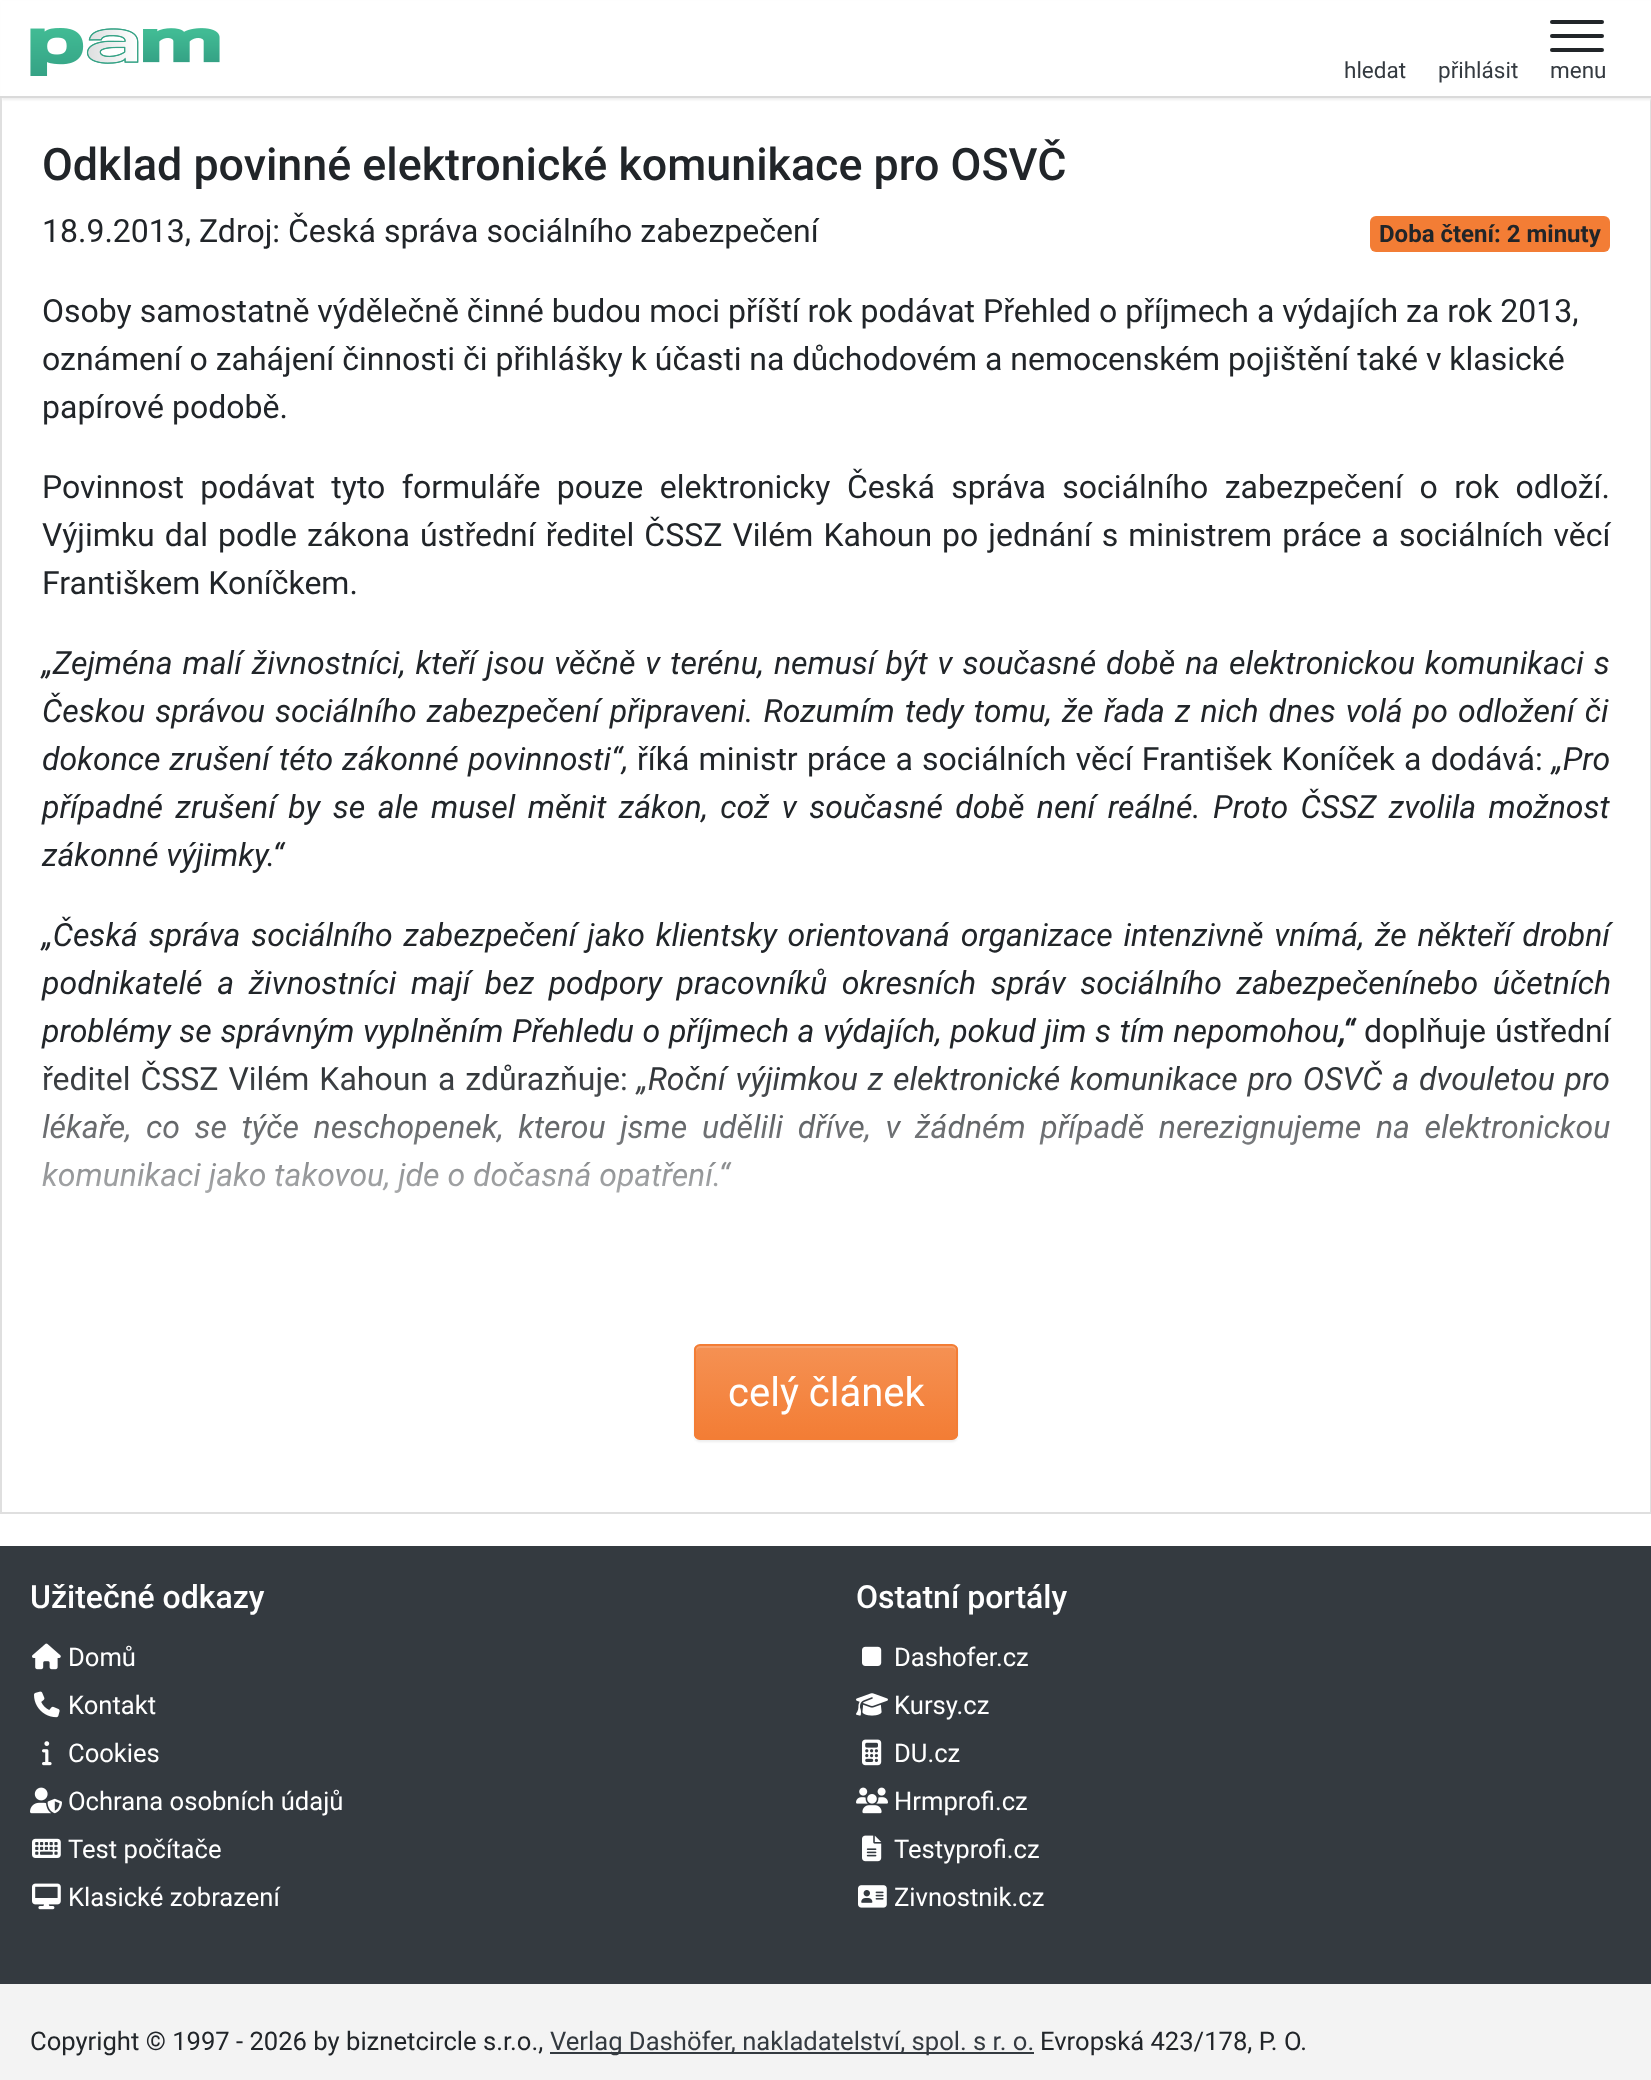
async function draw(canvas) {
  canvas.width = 1651
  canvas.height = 2080
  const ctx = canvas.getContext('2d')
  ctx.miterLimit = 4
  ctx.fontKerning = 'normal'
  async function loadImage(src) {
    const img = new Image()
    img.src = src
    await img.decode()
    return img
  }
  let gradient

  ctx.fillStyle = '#fff'
  ctx.fillRect(0, 0, 1651, 2080)
  ctx.strokeStyle = '#dfdfdf'
  ctx.lineWidth = 2
  ctx.strokeRect(1, 97, 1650, 1416)
  ctx.fillStyle = '#eee'
  ctx.filter = 'blur(1px)'
  ctx.beginPath()
  ctx.rect(2, 2, 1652, 98)
  ctx.fill()
  ctx.filter = 'none'
  ctx.fillStyle = '#fff'
  ctx.fillRect(1, 1, 1650, 95)
  ctx.fillStyle = '#dadada'
  ctx.fillRect(0, 96, 1651, 2)
  ctx.drawImage(await loadImage('image0.png'), 30, 28, 190, 48)
  ctx.font = '22.5px Roboto'
  ctx.fillStyle = '#343a40'
  ctx.fillText('hledat', 1344, 78)
  ctx.fillText('přihlásit', 1438, 78)
  ctx.fillStyle = '#212529'
  ctx.beginPath()
  ctx.roundRect(1550, 20, 54, 4, 2)
  ctx.fill()
  ctx.beginPath()
  ctx.roundRect(1550, 34, 54, 4, 2)
  ctx.fill()
  ctx.beginPath()
  ctx.roundRect(1550, 48, 54, 4, 2)
  ctx.fill()
  ctx.fillStyle = '#343a40'
  ctx.fillText('menu', 1550, 78)
  ctx.font = '500 44.8px Roboto'
  ctx.fillStyle = '#212529'
  ctx.fillText('Odklad povinné elektronické komunikace pro OSVČ', 42, 180)
  ctx.font = '32px Roboto'
  ctx.fillText('18.9.2013, Zdroj: Česká správa sociálního zabezpečení', 42, 242)
  ctx.fillStyle = '#f37d35'
  ctx.beginPath()
  ctx.roundRect(1370, 216, 240, 36, 6)
  ctx.fill()
  ctx.font = 'bold 24px Roboto'
  ctx.fillStyle = '#212529'
  ctx.fillText('Doba čtení: 2 minuty', 1379, 242)
  ctx.font = '32px Roboto'
  ctx.fillText('Osoby samostatně výdělečně činné budou moci příští rok podávat Přehled o příjmech a výdajích za rok 2013,', 42, 322)
  ctx.fillText('oznámení o zahájení činnosti či přihlášky k účasti na důchodovém a nemocenském pojištění také v klasické', 42, 370)
  ctx.fillText('papírové podobě.', 42, 418)
  ctx.wordSpacing = '8.5px'
  ctx.fillText('Povinnost podávat tyto formuláře pouze elektronicky Česká správa sociálního zabezpečení o rok odloží.', 42, 498)
  ctx.wordSpacing = '2.1px'
  ctx.fillText('Výjimku dal podle zákona ústřední ředitel ČSSZ Vilém Kahoun po jednání s ministrem práce a sociálních věcí', 42, 546)
  ctx.wordSpacing = '0px'
  ctx.fillText('Františkem Koníčkem.', 42, 594)
  ctx.wordSpacing = '2.1px'
  ctx.font = 'italic 32px Roboto'
  ctx.fillText('„Zejména malí živnostníci, kteří jsou věčně v terénu, nemusí být v současné době na elektronickou komunikaci s', 42, 674)
  ctx.wordSpacing = '2.25px'
  ctx.fillText('Českou správou sociálního zabezpečení připraveni. Rozumím tedy tomu, že řada z nich dnes volá po odložení či', 42, 722)
  ctx.wordSpacing = '1.25px'
  ctx.fillText('dokonce zrušení této zákonné povinnosti“,', 42, 770)
  ctx.font = '32px Roboto'
  ctx.fillText('říká ministr práce a sociálních věcí František Koníček a dodává:', 637, 770)
  ctx.wordSpacing = '0px'
  ctx.font = 'italic 32px Roboto'
  ctx.fillText('„Pro', 1552, 770)
  ctx.wordSpacing = '4.6px'
  ctx.fillText('případné zrušení by se ale musel měnit zákon, což v současné době není reálné. Proto ČSSZ zvolila možnost', 42, 818)
  ctx.wordSpacing = '0px'
  ctx.fillText('zákonné výjimky.“', 42, 866)
  ctx.wordSpacing = '2.9px'
  ctx.fillText('„Česká správa sociálního zabezpečení jako klientsky orientovaná organizace intenzivně vnímá, že někteří drobní', 42, 946)
  ctx.wordSpacing = '6.75px'
  ctx.fillText('podnikatelé a živnostníci mají bez podpory pracovníků okresních správ sociálního zabezpečenínebo účetních', 42, 994)
  ctx.wordSpacing = '0.75px'
  ctx.fillText('problémy se správným vyplněním Přehledu o příjmech a výdajích, pokud jim s tím nepomohou', 42, 1042)
  ctx.wordSpacing = '0px'
  ctx.font = 'italic bold 32px Roboto'
  ctx.fillText(',“', 1339, 1042)
  ctx.wordSpacing = '1px'
  ctx.font = '32px Roboto'
  ctx.fillText('doplňuje ústřední', 1364, 1042)
  ctx.wordSpacing = '2px'
  ctx.fillText('ředitel ČSSZ Vilém Kahoun a zdůrazňuje:', 42, 1090)
  ctx.font = 'italic 32px Roboto'
  ctx.fillText('„Roční výjimkou z elektronické komunikace pro OSVČ a dvouletou pro', 637, 1090)
  ctx.wordSpacing = '6.75px'
  ctx.fillText('lékaře, co se týče neschopenek, kterou jsme udělili dříve, v žádném případě nerezignujeme na elektronickou', 42, 1138)
  ctx.wordSpacing = '0px'
  ctx.fillText('komunikaci jako takovou, jde o dočasná opatření.“', 42, 1186)
  gradient = ctx.createLinearGradient(826, 1056, 826, 1280)
  gradient.addColorStop(0, '#ffffff00')
  gradient.addColorStop(1, '#fff')
  ctx.fillStyle = gradient
  ctx.fillRect(42, 1061, 1568, 132)
  ctx.fillStyle = '#00000012'
  ctx.filter = 'blur(1px)'
  ctx.beginPath()
  ctx.roundRect(694, 1346, 264, 96, 6)
  ctx.fill()
  ctx.filter = 'none'
  ctx.save()
  ctx.beginPath()
  ctx.roundRect(694, 1344, 264, 96, 6)
  ctx.clip()
  gradient = ctx.createLinearGradient(826, 1346, 826, 1438)
  gradient.addColorStop(0, '#f59153')
  gradient.addColorStop(1, '#f37d35')
  ctx.fillStyle = gradient
  ctx.fillRect(694, 1346, 264, 92)
  ctx.restore()
  ctx.fillStyle = '#f7a16d'
  ctx.beginPath()
  ctx.moveTo(700, 1348)
  ctx.lineTo(952, 1348)
  ctx.bezierCurveTo(954, 1348, 956, 1350, 956, 1352)
  ctx.bezierCurveTo(956, 1349, 956, 1346, 952, 1346)
  ctx.lineTo(699, 1346)
  ctx.bezierCurveTo(696, 1347, 696, 1349, 696, 1352)
  ctx.bezierCurveTo(696, 1350, 698, 1348, 700, 1348)
  ctx.closePath()
  ctx.fill()
  ctx.beginPath()
  ctx.roundRect(695, 1345, 262, 94, 5)
  ctx.strokeStyle = '#f37d35'
  ctx.stroke()
  ctx.font = '40px Roboto'
  ctx.fillStyle = '#fff'
  ctx.fillText('celý článek', 728, 1406)
  ctx.fillStyle = '#343a40'
  ctx.fillRect(0, 1546, 1651, 438)
  ctx.font = '500 32px Roboto'
  ctx.fillStyle = '#fff'
  ctx.fillText('Užitečné odkazy', 30, 1608)
  ctx.drawImage(await loadImage('image1.png'), 32, 1643, 29, 27)
  ctx.font = '25.6px Roboto'
  ctx.fillText('Domů', 68, 1666)
  ctx.drawImage(await loadImage('image2.png'), 34, 1691, 26, 27)
  ctx.fillText('Kontakt', 68, 1714)
  ctx.drawImage(await loadImage('image3.png'), 42, 1741, 10, 25)
  ctx.fillText('Cookies', 68, 1762)
  ctx.drawImage(await loadImage('image4.png'), 30, 1787, 32, 27)
  ctx.fillText('Ochrana osobních údajů', 68, 1810)
  ctx.drawImage(await loadImage('image5.png'), 32, 1838, 29, 20)
  ctx.fillText('Test počítače', 68, 1858)
  ctx.drawImage(await loadImage('image6.png'), 32, 1883, 29, 27)
  ctx.fillText('Klasické zobrazení', 68, 1906)
  ctx.font = '500 32px Roboto'
  ctx.fillText('Ostatní portály', 856, 1608)
  ctx.drawImage(await loadImage('image7.png'), 862, 1646, 20, 20)
  ctx.font = '25.6px Roboto'
  ctx.fillText('Dashofer.cz', 894, 1666)
  ctx.drawImage(await loadImage('image8.png'), 856, 1693, 32, 23)
  ctx.fillText('Kursy.cz', 894, 1714)
  ctx.drawImage(await loadImage('image9.png'), 862, 1739, 20, 27)
  ctx.fillText('DU.cz', 894, 1762)
  ctx.drawImage(await loadImage('image10.png'), 856, 1787, 32, 27)
  ctx.fillText('Hrmprofi.cz', 894, 1810)
  ctx.drawImage(await loadImage('image11.png'), 862, 1835, 20, 27)
  ctx.fillText('Testyprofi.cz', 894, 1858)
  ctx.drawImage(await loadImage('image12.png'), 858, 1885, 29, 23)
  ctx.fillText('Zivnostnik.cz', 894, 1906)
  ctx.fillStyle = '#f3f3f3'
  ctx.fillRect(0, 1984, 1651, 96)
  ctx.fillStyle = '#212529'
  ctx.fillText('Copyright © 1997 - 2026 by biznetcircle s.r.o.,', 30, 2050)
  ctx.fillStyle = '#343a40'
  ctx.fillRect(550, 2052, 484, 2)
  ctx.fillText('Verlag Dashöfer, nakladatelství, spol. s r. o.', 550, 2050)
  ctx.fillStyle = '#212529'
  ctx.fillText('Evropská 423/178, P. O.', 1040, 2050)
}

draw(document.querySelector('canvas'))
